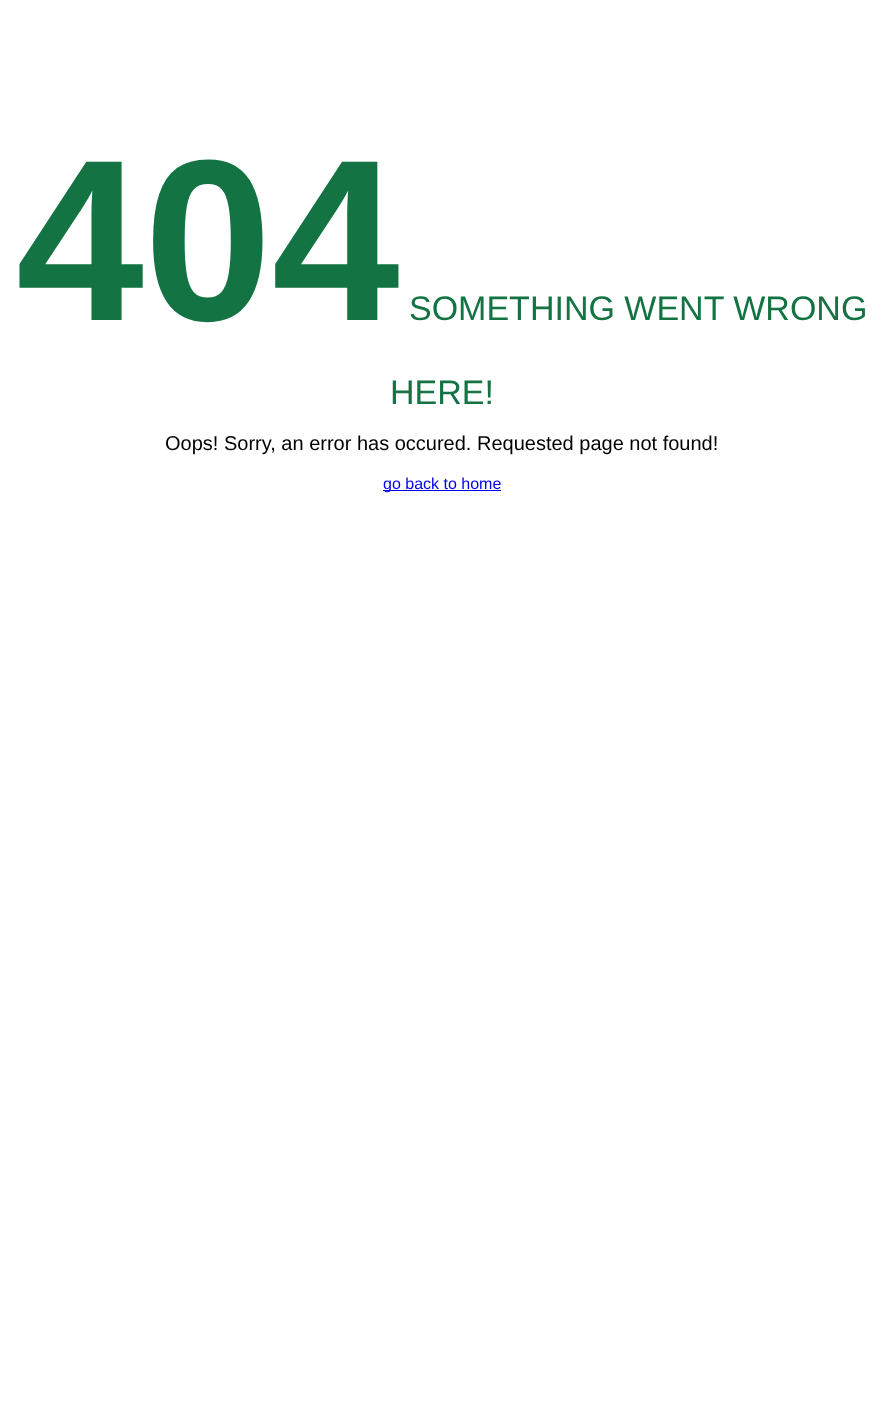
async function draw(canvas) {
  canvas.width = 884
  canvas.height = 1419
  const ctx = canvas.getContext('2d')
  ctx.miterLimit = 4
  ctx.fontKerning = 'normal'

  ctx.fillStyle = '#fff'
  ctx.fillRect(0, 0, 884, 1419)
  ctx.font = 'bold 230px Liberation Sans'
  ctx.fillStyle = '#137343'
  ctx.fillText('404', 16, 320)
  ctx.font = '34px Liberation Sans'
  ctx.fillText('SOMETHING WENT WRONG', 409, 320)
  ctx.fillText('HERE!', 390, 404)
  ctx.font = '20px Liberation Sans'
  ctx.fillStyle = '#000'
  ctx.fillText('Oops! Sorry, an error has occured. Requested page not found!', 165, 450)
  ctx.fillStyle = '#00e'
  ctx.fillRect(383, 490, 118, 1)
  ctx.font = '16px Liberation Sans'
  ctx.fillText('go back to home', 383, 489)
}

draw(document.querySelector('canvas'))
